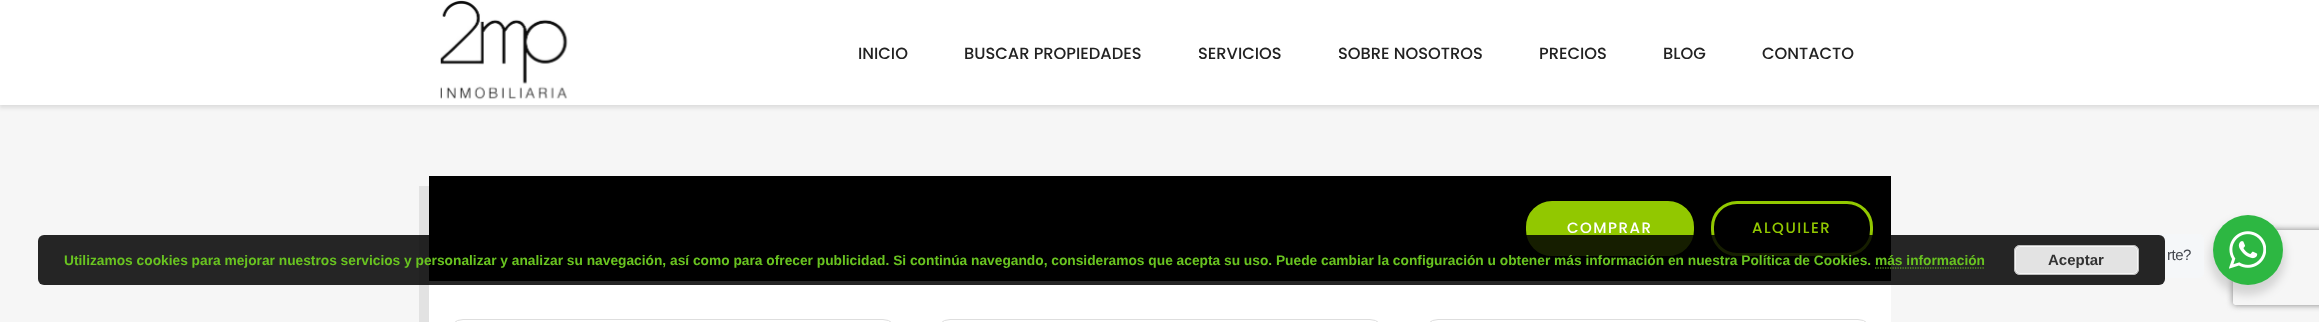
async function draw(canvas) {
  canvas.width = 2319
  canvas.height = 322
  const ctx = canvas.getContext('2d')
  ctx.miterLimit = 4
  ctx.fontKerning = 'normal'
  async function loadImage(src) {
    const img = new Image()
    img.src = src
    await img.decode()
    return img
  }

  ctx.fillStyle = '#f6f6f6'
  ctx.fillRect(0, 0, 2319, 322)
  ctx.fillStyle = '#0000001a'
  ctx.filter = 'blur(2px)'
  ctx.beginPath()
  ctx.rect(-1, -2, 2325, 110)
  ctx.fill()
  ctx.filter = 'none'
  ctx.fillStyle = '#fff'
  ctx.fillRect(0, 0, 2319, 105)
  ctx.drawImage(await loadImage('image0.png'), 440, 0, 128, 100)
  ctx.font = '500 16.25px Poppins'
  ctx.fillStyle = '#222'
  ctx.fillText('INICIO', 858, 59)
  ctx.fillText('BUSCAR PROPIEDADES', 964, 59)
  ctx.fillText('SERVICIOS', 1198, 59)
  ctx.fillText('SOBRE NOSOTROS', 1338, 59)
  ctx.fillText('PRECIOS', 1539, 59)
  ctx.fillText('BLOG', 1663, 59)
  ctx.fillText('CONTACTO', 1762, 59)
  ctx.fillStyle = '#e2e2e2'
  ctx.beginPath()
  ctx.moveTo(419, 186)
  ctx.lineTo(419, 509)
  ctx.lineTo(1881, 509)
  ctx.lineTo(1881, 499)
  ctx.lineTo(429, 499)
  ctx.lineTo(429, 186)
  ctx.closePath()
  ctx.fill()
  ctx.fillStyle = '#fff'
  ctx.fillRect(429, 281, 1462, 41)
  ctx.fillStyle = '#000'
  ctx.fillRect(429, 176, 1462, 105)
  ctx.fillStyle = '#92c800'
  ctx.beginPath()
  ctx.roundRect(1527.5, 202.5, 165, 52, 24.5)
  ctx.fill()
  ctx.strokeStyle = '#92c800'
  ctx.lineWidth = 3
  ctx.stroke()
  ctx.letterSpacing = '1.5px'
  ctx.font = '500 15px Poppins'
  ctx.fillStyle = '#fff'
  ctx.fillText('COMPRAR', 1567, 233)
  ctx.beginPath()
  ctx.roundRect(1712.5, 202.5, 159, 52, 24.5)
  ctx.stroke()
  ctx.fillStyle = '#92c800'
  ctx.fillText('ALQUILER', 1752, 233)
  ctx.beginPath()
  ctx.roundRect(448.5, 319.5, 449, 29, 25.5)
  ctx.strokeStyle = '#dedede'
  ctx.lineWidth = 1
  ctx.stroke()
  ctx.beginPath()
  ctx.roundRect(935.5, 319.5, 449, 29, 25.5)
  ctx.stroke()
  ctx.beginPath()
  ctx.roundRect(1423.5, 319.5, 449, 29, 25.5)
  ctx.stroke()
  ctx.fillStyle = '#00000024'
  ctx.filter = 'blur(5px)'
  ctx.beginPath()
  ctx.roundRect(2210, 220, 75, 75, 37.5)
  ctx.fill()
  ctx.filter = 'none'
  ctx.fillStyle = '#f5f7f9'
  ctx.beginPath()
  ctx.roundRect(2009, 234, 195, 44, 5)
  ctx.fill()
  ctx.fillStyle = '#000000d9'
  ctx.beginPath()
  ctx.roundRect(38, 235, 2127, 50, 6)
  ctx.fill()
  ctx.letterSpacing = '0px'
  ctx.font = 'bold 13.75px Liberation Sans'
  ctx.fillStyle = '#69c420'
  ctx.fillText('Utilizamos cookies para mejorar nuestros servicios y personalizar y analizar su navegación, así como para ofrecer publicidad. Si continúa navegando, consideramos que acepta su uso. Puede cambiar la configuración u obtener más información en nuestra Política de Cookies. más información', 64, 265)
  ctx.fillStyle = '#e3e3e3'
  ctx.beginPath()
  ctx.roundRect(2014, 245, 125, 30, 6)
  ctx.fill()
  ctx.beginPath()
  ctx.roundRect(2015.5, 246.5, 122, 27, 4.5)
  ctx.strokeStyle = '#f6f6f6'
  ctx.stroke()
  ctx.beginPath()
  ctx.roundRect(2014.5, 245.5, 124, 29, 5.5)
  ctx.strokeStyle = '#bbb'
  ctx.stroke()
  ctx.font = 'bold 15px Liberation Sans'
  ctx.fillStyle = '#333'
  ctx.fillText('Aceptar', 2048, 265)
  ctx.beginPath()
  ctx.moveTo(1875, 268)
  ctx.lineTo(1985, 268)
  ctx.strokeStyle = '#69c420'
  ctx.lineWidth = 1.2
  ctx.setLineDash([1.25, 1.25])
  ctx.stroke()
  ctx.letterSpacing = '-0.5px'
  ctx.font = '15px Liberation Sans'
  ctx.fillStyle = '#43474e'
  ctx.fillText('rte?', 2167, 260)
  ctx.save()
  ctx.beginPath()
  ctx.moveTo(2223, 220)
  ctx.lineTo(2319, 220)
  ctx.lineTo(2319, 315)
  ctx.lineTo(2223, 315)
  ctx.closePath()
  ctx.moveTo(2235.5, 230)
  ctx.lineTo(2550.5, 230)
  ctx.bezierCurveTo(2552, 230, 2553, 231, 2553, 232.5)
  ctx.lineTo(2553, 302.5)
  ctx.bezierCurveTo(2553, 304, 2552, 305, 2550.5, 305)
  ctx.lineTo(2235.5, 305)
  ctx.bezierCurveTo(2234, 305, 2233, 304, 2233, 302.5)
  ctx.lineTo(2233, 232.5)
  ctx.bezierCurveTo(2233, 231, 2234, 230, 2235.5, 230)
  ctx.closePath()
  ctx.clip('evenodd')
  ctx.fillStyle = '#808080'
  ctx.filter = 'blur(3px)'
  ctx.beginPath()
  ctx.roundRect(2233, 230, 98, 75, 2.5)
  ctx.fill()
  ctx.filter = 'none'
  ctx.restore()
  ctx.fillStyle = '#2db742'
  ctx.beginPath()
  ctx.arc(2248, 250, 35, 0, 2 * Math.PI)
  ctx.fill()
  ctx.drawImage(await loadImage('image1.png'), 2229, 231, 37, 38)
}

draw(document.querySelector('canvas'))
